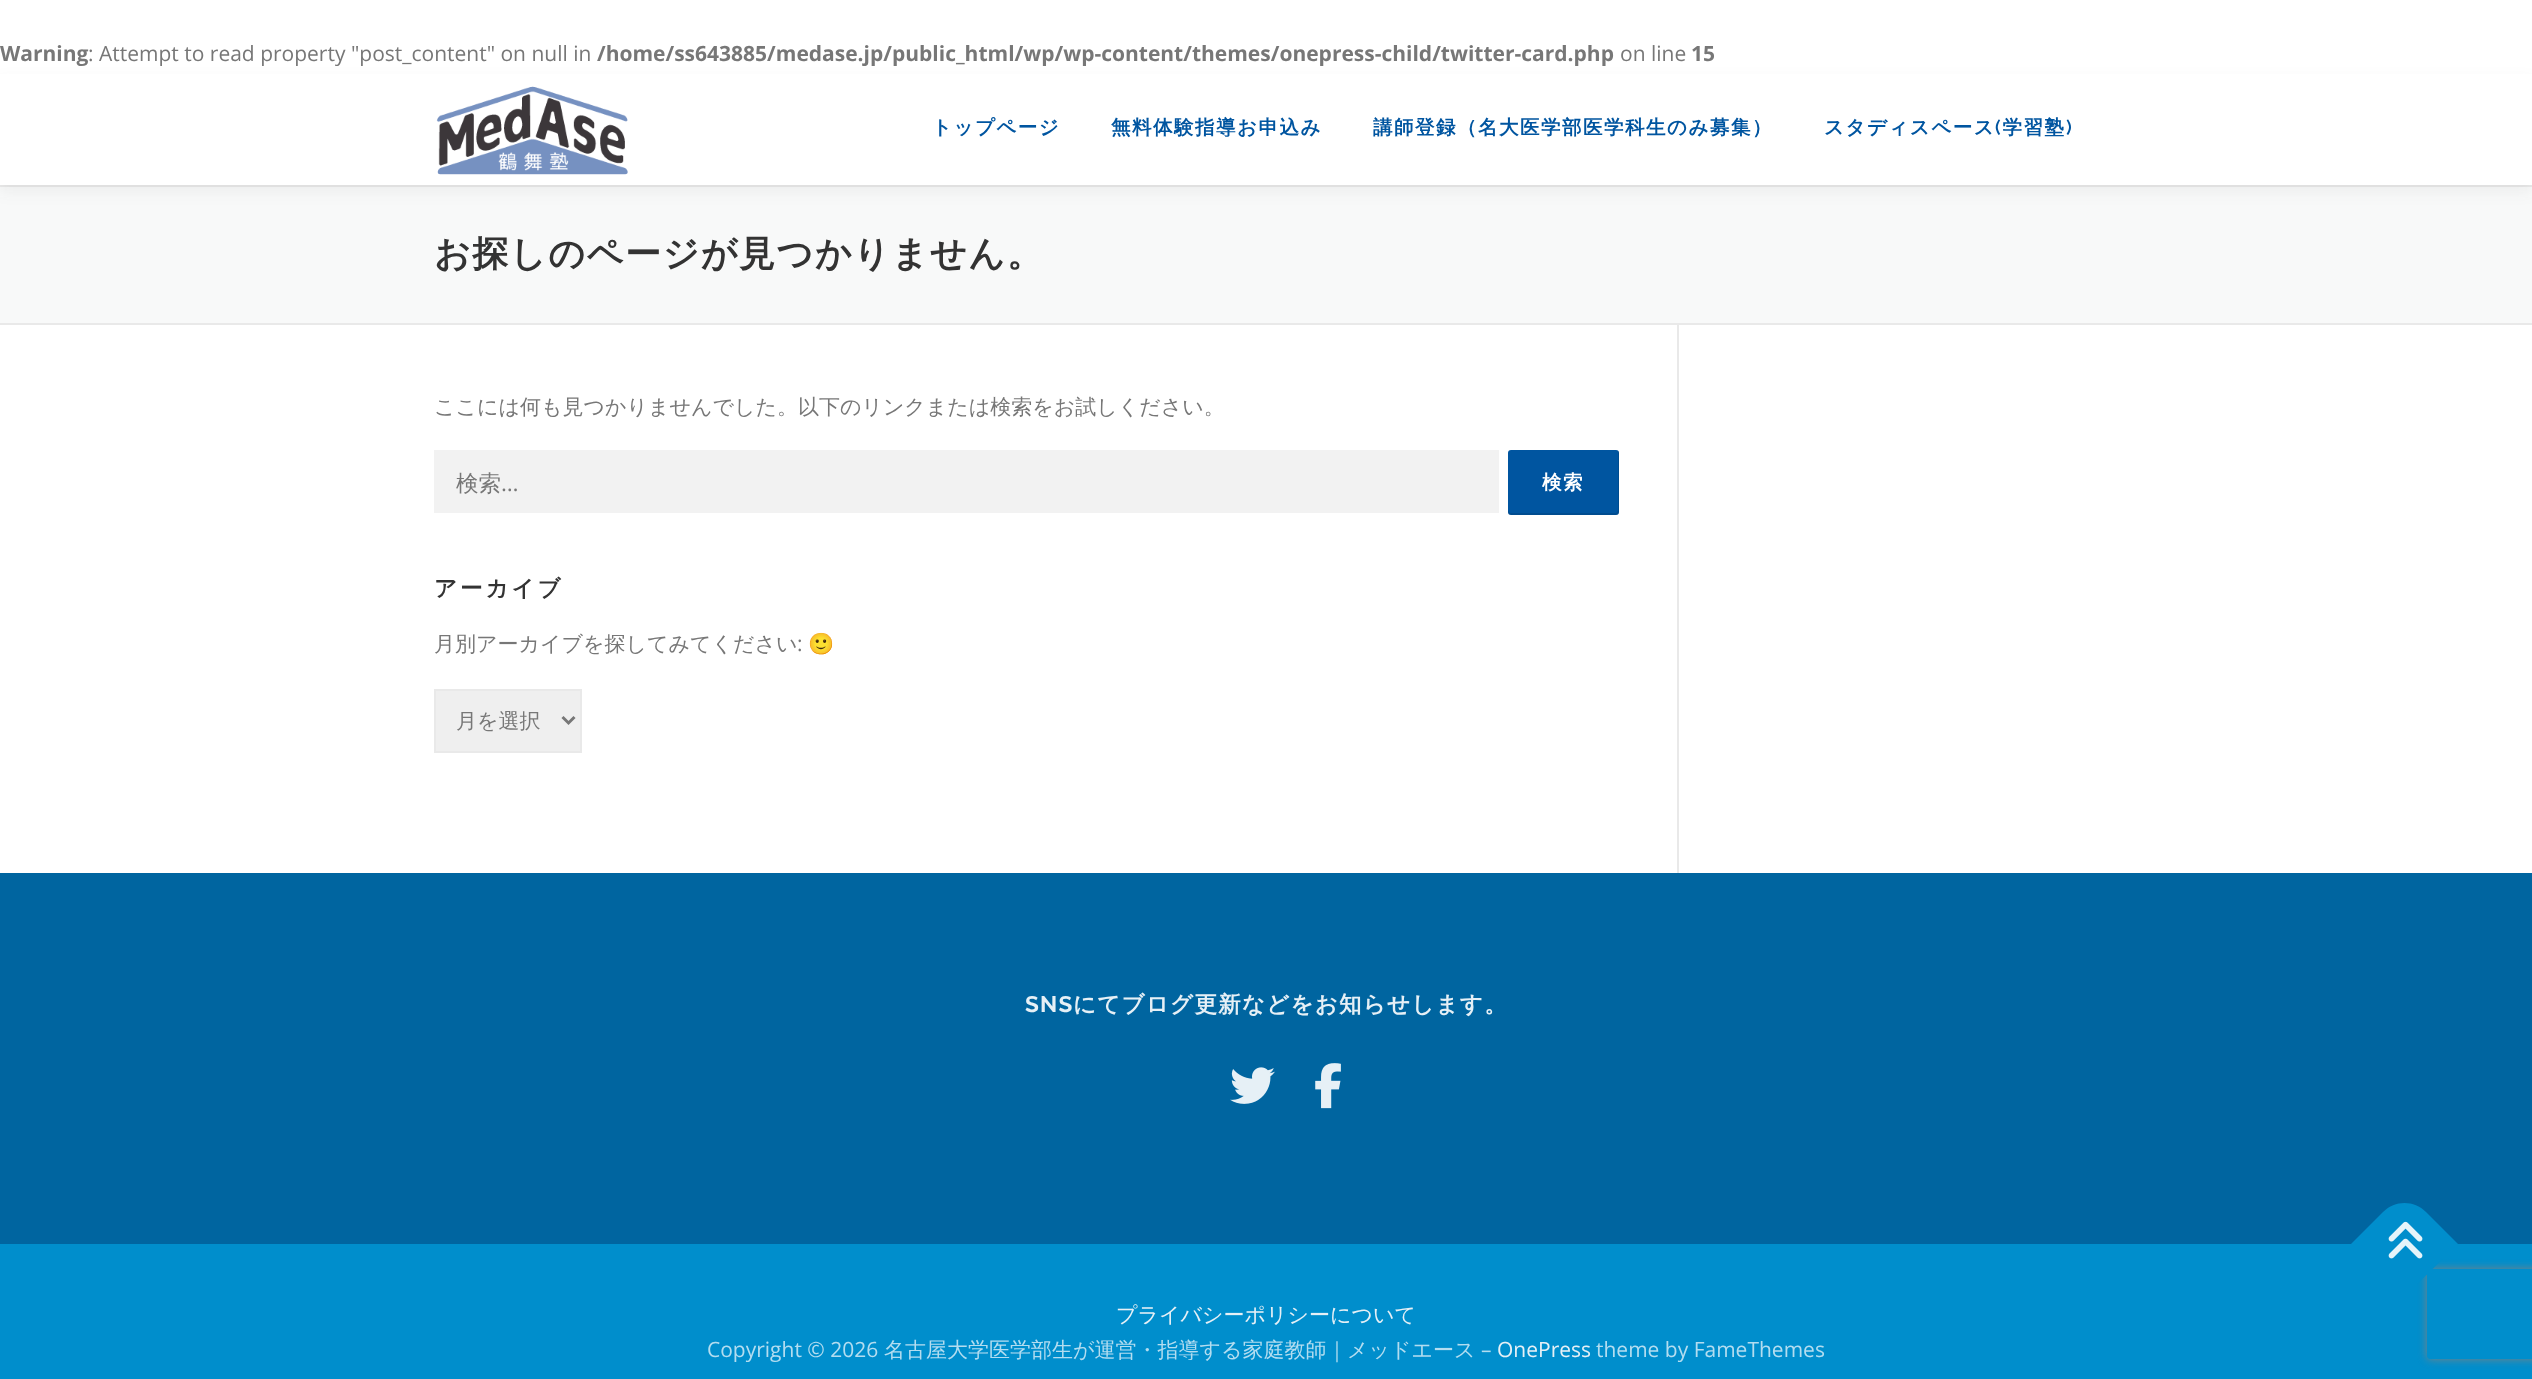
async function draw(canvas) {
  canvas.width = 2532
  canvas.height = 1379
  const ctx = canvas.getContext('2d')
  ctx.miterLimit = 4
  ctx.fontKerning = 'normal'
  async function loadImage(src) {
    const img = new Image()
    img.src = src
    await img.decode()
    return img
  }

  ctx.fillStyle = '#fff'
  ctx.fillRect(0, 0, 2532, 1379)
  ctx.font = 'bold 21px Open Sans'
  ctx.fillStyle = '#777'
  ctx.fillText('Warning', 0, 61)
  ctx.font = '21px Open Sans'
  ctx.fillText(': Attempt to read property "post_content" on null in', 88, 61)
  ctx.font = 'bold 21px Open Sans'
  ctx.fillText('/home/ss643885/medase.jp/public_html/wp/wp-content/themes/onepress-child/twitter-card.php', 597, 61)
  ctx.font = '21px Open Sans'
  ctx.fillText('on line', 1620, 61)
  ctx.font = 'bold 21px Open Sans'
  ctx.fillText('15', 1691, 61)
  ctx.fillStyle = '#f8f9f9'
  ctx.fillRect(0, 187, 2532, 136)
  ctx.fillStyle = '#e9e9e9'
  ctx.fillRect(0, 185, 2532, 2)
  ctx.fillStyle = '#3232320f'
  ctx.filter = 'blur(7.5px)'
  ctx.beginPath()
  ctx.rect(0, 80, 2532, 112)
  ctx.fill()
  ctx.filter = 'none'
  ctx.fillStyle = '#fff'
  ctx.fillRect(0, 74, 2532, 111)
  ctx.drawImage(await loadImage('image0.png'), 436, 86, 192, 89)
  ctx.letterSpacing = '1.5px'
  ctx.font = 'bold 19.5px WenQuanYi Zen Hei'
  ctx.fillStyle = '#0055a0'
  ctx.fillText('トップページ', 932, 134)
  ctx.fillText('無料体験指導お申込み', 1111, 134)
  ctx.fillText('講師登録（名大医学部医学科生のみ募集）', 1373, 134)
  ctx.fillText('スタディスペース 学習塾', 1824, 134)
  ctx.font = '600 19.5px Raleway'
  ctx.fillText('(', 1995, 134)
  ctx.fillText(')', 2066, 134)
  ctx.fillStyle = '#e9e9e9'
  ctx.fillRect(0, 323, 2532, 2)
  ctx.font = 'bold 36px WenQuanYi Zen Hei'
  ctx.fillStyle = '#333'
  ctx.fillText('お探しのページが見つかりません。', 434, 266)
  ctx.fillStyle = '#e9e9e9'
  ctx.fillRect(1677, 324, 2, 549)
  ctx.letterSpacing = '0px'
  ctx.font = '500 21px WenQuanYi Zen Hei'
  ctx.fillStyle = '#777'
  ctx.fillText('ここには何も見つかりませんでした。以下のリンクまたは検索をお試しください。', 434, 414)
  ctx.fillStyle = '#f2f2f2'
  ctx.fillRect(434, 450, 1065, 63)
  ctx.font = '500 22.5px WenQuanYi Zen Hei'
  ctx.fillStyle = '#777'
  ctx.fillText('検索', 456, 491)
  ctx.font = '22.5px Open Sans'
  ctx.fillText('…', 501, 491)
  ctx.fillStyle = '#0055a0'
  ctx.beginPath()
  ctx.roundRect(1508, 450, 111, 65, 3)
  ctx.fill()
  ctx.fillStyle = '#0000001a'
  ctx.beginPath()
  ctx.moveTo(1508, 510)
  ctx.lineTo(1508, 512)
  ctx.bezierCurveTo(1508, 514, 1509, 515, 1511, 515)
  ctx.lineTo(1616, 515)
  ctx.bezierCurveTo(1618, 515, 1619, 514, 1619, 512)
  ctx.lineTo(1619, 453)
  ctx.bezierCurveTo(1619, 452, 1619, 451, 1618, 451)
  ctx.lineTo(1618, 510)
  ctx.lineTo(1617, 512)
  ctx.lineTo(1616, 513)
  ctx.lineTo(1510, 513)
  ctx.lineTo(1509, 512)
  ctx.closePath()
  ctx.fill()
  ctx.letterSpacing = '1.5px'
  ctx.font = 'bold 19.5px WenQuanYi Zen Hei'
  ctx.fillStyle = '#fff'
  ctx.fillText('検索', 1542, 489)
  ctx.letterSpacing = '3px'
  ctx.font = 'bold 22.5px WenQuanYi Zen Hei'
  ctx.fillStyle = '#333'
  ctx.fillText('アーカイブ', 434, 596)
  ctx.letterSpacing = '0px'
  ctx.font = '500 21px WenQuanYi Zen Hei'
  ctx.fillStyle = '#777'
  ctx.fillText('月別アーカイブを探してみてください', 434, 651)
  ctx.font = '21px Open Sans'
  ctx.fillText(':', 797, 651)
  ctx.font = '21px Noto Color Emoji'
  ctx.fillText('🙂', 808, 651)
  ctx.fillStyle = '#efefef'
  ctx.beginPath()
  ctx.rect(435, 690, 146, 62)
  ctx.fill()
  ctx.strokeStyle = '#e9e9e9'
  ctx.lineWidth = 2
  ctx.stroke()
  ctx.beginPath()
  ctx.moveTo(562.5, 717)
  ctx.lineTo(568.5, 723)
  ctx.lineTo(574.5, 717)
  ctx.strokeStyle = '#777'
  ctx.lineWidth = 3
  ctx.stroke()
  ctx.font = '500 21px WenQuanYi Zen Hei'
  ctx.fillStyle = '#777'
  ctx.fillText('月を選択', 456, 728)
  ctx.fillStyle = '#0065a0'
  ctx.fillRect(0, 873, 2532, 371)
  ctx.letterSpacing = '1.25px'
  ctx.font = 'bold 22.5px Raleway'
  ctx.fillStyle = '#e6f0f6'
  ctx.fillText('SNS', 1025, 1012)
  ctx.font = 'bold 22.5px WenQuanYi Zen Hei'
  ctx.fillText('にてブログ更新などをお知らせします。', 1073, 1012)
  ctx.drawImage(await loadImage('image1.png'), 1230, 1067, 45, 37)
  ctx.drawImage(await loadImage('image2.png'), 1315, 1063, 26, 46)
  ctx.fillStyle = '#008ecc'
  ctx.fillRect(0, 1244, 2532, 135)
  ctx.save()
  ctx.beginPath()
  ctx.moveTo(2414, 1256)
  ctx.lineTo(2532, 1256)
  ctx.lineTo(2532, 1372)
  ctx.lineTo(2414, 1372)
  ctx.closePath()
  ctx.moveTo(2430, 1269)
  ctx.lineTo(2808, 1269)
  ctx.bezierCurveTo(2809.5, 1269, 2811, 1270.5, 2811, 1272)
  ctx.lineTo(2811, 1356)
  ctx.bezierCurveTo(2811, 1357.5, 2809.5, 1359, 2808, 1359)
  ctx.lineTo(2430, 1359)
  ctx.bezierCurveTo(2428.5, 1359, 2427, 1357.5, 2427, 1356)
  ctx.lineTo(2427, 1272)
  ctx.bezierCurveTo(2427, 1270.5, 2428.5, 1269, 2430, 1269)
  ctx.closePath()
  ctx.clip('evenodd')
  ctx.fillStyle = '#808080'
  ctx.filter = 'blur(4px)'
  ctx.beginPath()
  ctx.roundRect(2427, 1269, 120, 90, 3)
  ctx.fill()
  ctx.filter = 'none'
  ctx.restore()
  ctx.beginPath()
  ctx.moveTo(2351, 1244)
  ctx.lineTo(2383, 1212)
  ctx.bezierCurveTo(2395, 1200, 2414, 1200, 2426, 1212)
  ctx.lineTo(2458, 1244)
  ctx.lineTo(2404, 1297)
  ctx.closePath()
  ctx.fill()
  ctx.drawImage(await loadImage('image3.png'), 2388, 1221, 35, 38)
  ctx.letterSpacing = '0px'
  ctx.font = '500 21px WenQuanYi Zen Hei'
  ctx.fillStyle = '#e6f0f6'
  ctx.fillText('プライバシーポリシーについて', 1116, 1322)
  ctx.font = '21px Open Sans'
  ctx.fillStyle = '#b3ddf0'
  ctx.fillText('Copyright © 2026', 707, 1357)
  ctx.font = '500 21px WenQuanYi Zen Hei'
  ctx.fillText('名古屋大学医学部生が運営・指導する家庭教師｜メッドエース', 884, 1357)
  ctx.font = '21px Open Sans'
  ctx.fillText('–', 1481, 1357)
  ctx.fillStyle = '#e6f0f6'
  ctx.fillText('OnePress', 1497, 1357)
  ctx.fillStyle = '#b3ddf0'
  ctx.fillText('theme by FameThemes', 1596, 1357)
}

draw(document.querySelector('canvas'))
